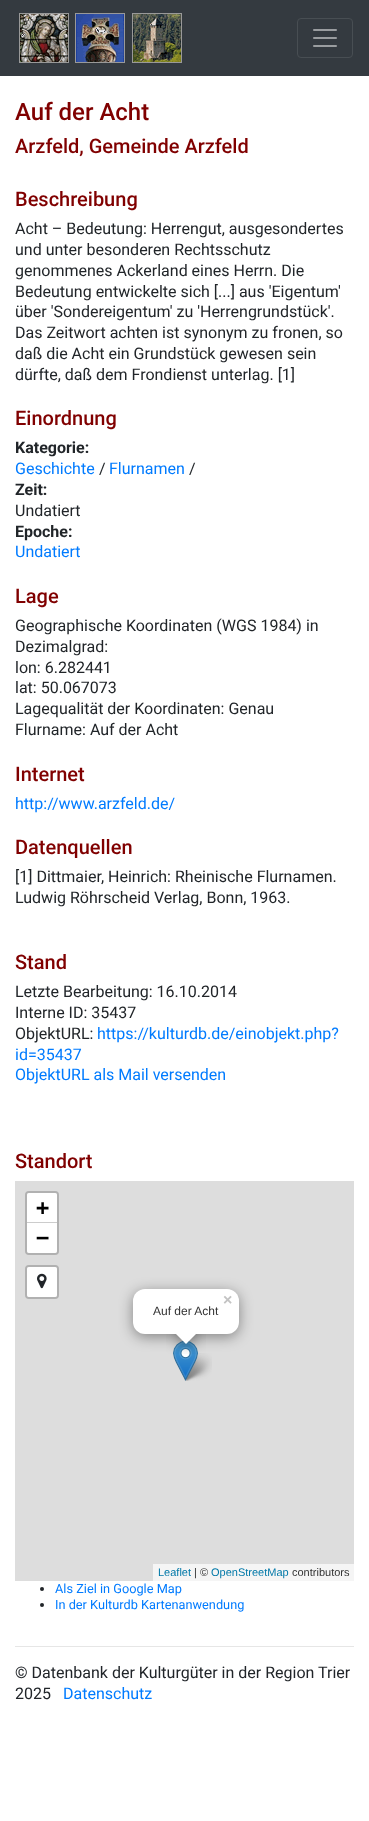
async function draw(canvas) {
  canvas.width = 369
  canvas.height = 1821
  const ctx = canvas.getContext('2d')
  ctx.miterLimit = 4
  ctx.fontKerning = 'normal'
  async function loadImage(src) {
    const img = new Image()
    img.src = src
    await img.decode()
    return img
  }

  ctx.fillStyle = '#fff'
  ctx.fillRect(0, 0, 369, 1821)
  ctx.fillStyle = '#343a40'
  ctx.fillRect(0, 0, 369, 76)
  ctx.drawImage(await loadImage('image0.png'), 19, 13, 163, 50)
  ctx.beginPath()
  ctx.roundRect(297.5, 18.5, 55, 39, 3.5)
  ctx.strokeStyle = '#484e53'
  ctx.stroke()
  ctx.drawImage(await loadImage('image1.png'), 313, 29, 24, 18)
  ctx.font = '500 24px Roboto'
  ctx.fillStyle = '#800000'
  ctx.fillText('Auf der Acht', 15, 120)
  ctx.font = '500 20px Roboto'
  ctx.fillText('Arzfeld, Gemeinde Arzfeld', 15, 153)
  ctx.fillText('Beschreibung', 15, 206)
  ctx.font = '16px Roboto'
  ctx.fillStyle = '#212529'
  ctx.fillText('Acht – Bedeutung: Herrengut, ausgesondertes', 15, 234)
  ctx.fillText('und unter besonderen Rechtsschutz', 15, 255)
  ctx.fillText('genommenes Ackerland eines Herrn. Die', 15, 276)
  ctx.fillText('Bedeutung entwickelte sich [...] aus \'Eigentum\'', 15, 297)
  ctx.fillText('über \'Sondereigentum\' zu \'Herrengrundstück\'.', 15, 317)
  ctx.fillText('Das Zeitwort achten ist synonym zu fronen, so', 15, 338)
  ctx.fillText('daß die Acht ein Grundstück gewesen sein', 15, 359)
  ctx.fillText('dürfte, daß dem Frondienst unterlag. [1]', 15, 380)
  ctx.font = '500 20px Roboto'
  ctx.fillStyle = '#800000'
  ctx.fillText('Einordnung', 15, 425)
  ctx.font = 'bold 16px Roboto'
  ctx.fillStyle = '#212529'
  ctx.fillText('Kategorie:', 15, 453)
  ctx.font = '16px Roboto'
  ctx.fillStyle = '#007bff'
  ctx.fillText('Geschichte', 15, 474)
  ctx.fillStyle = '#212529'
  ctx.fillText('/', 99, 474)
  ctx.fillStyle = '#007bff'
  ctx.fillText('Flurnamen', 109, 474)
  ctx.fillStyle = '#212529'
  ctx.fillText('/', 189, 474)
  ctx.font = 'bold 16px Roboto'
  ctx.fillText('Zeit:', 15, 495)
  ctx.font = '16px Roboto'
  ctx.fillText('Undatiert', 15, 516)
  ctx.font = 'bold 16px Roboto'
  ctx.fillText('Epoche:', 15, 537)
  ctx.font = '16px Roboto'
  ctx.fillStyle = '#007bff'
  ctx.fillText('Undatiert', 15, 557)
  ctx.font = '500 20px Roboto'
  ctx.fillStyle = '#800000'
  ctx.fillText('Lage', 15, 603)
  ctx.font = '16px Roboto'
  ctx.fillStyle = '#212529'
  ctx.fillText('Geographische Koordinaten (WGS 1984) in', 15, 631)
  ctx.fillText('Dezimalgrad:', 15, 652)
  ctx.fillText('lon: 6.282441', 15, 673)
  ctx.fillText('lat: 50.067073', 15, 693)
  ctx.fillText('Lagequalität der Koordinaten: Genau', 15, 714)
  ctx.fillText('Flurname: Auf der Acht', 15, 735)
  ctx.font = '500 20px Roboto'
  ctx.fillStyle = '#800000'
  ctx.fillText('Internet', 15, 781)
  ctx.font = '16px Roboto'
  ctx.fillStyle = '#007bff'
  ctx.fillText('http://www.arzfeld.de/', 15, 809)
  ctx.font = '500 20px Roboto'
  ctx.fillStyle = '#800000'
  ctx.fillText('Datenquellen', 15, 854)
  ctx.font = '16px Roboto'
  ctx.fillStyle = '#212529'
  ctx.fillText('[1] Dittmaier, Heinrich: Rheinische Flurnamen.', 15, 882)
  ctx.fillText('Ludwig Röhrscheid Verlag, Bonn, 1963.', 15, 903)
  ctx.font = '500 20px Roboto'
  ctx.fillStyle = '#800000'
  ctx.fillText('Stand', 15, 969)
  ctx.font = '16px Roboto'
  ctx.fillStyle = '#212529'
  ctx.fillText('Letzte Bearbeitung: 16.10.2014', 15, 997)
  ctx.fillText('Interne ID: 35437', 15, 1018)
  ctx.fillText('ObjektURL:', 15, 1039)
  ctx.fillStyle = '#007bff'
  ctx.fillText('https://kulturdb.de/einobjekt.php?', 97, 1039)
  ctx.fillText('id=35437', 15, 1060)
  ctx.fillText('ObjektURL als Mail versenden', 15, 1080)
  ctx.font = '500 20px Roboto'
  ctx.fillStyle = '#800000'
  ctx.fillText('Standort', 15, 1168)
  ctx.fillStyle = '#ddd'
  ctx.fillRect(15, 1181, 339, 400)
  ctx.beginPath()
  ctx.roundRect(26, 1192, 32, 62, 3)
  ctx.strokeStyle = '#b1b1b1'
  ctx.lineWidth = 2
  ctx.stroke()
  ctx.fillStyle = '#fff'
  ctx.beginPath()
  ctx.roundRect(27, 1193, 30, 30, [2, 2, 0, 0])
  ctx.fill()
  ctx.fillStyle = '#ccc'
  ctx.fillRect(27, 1222, 30, 1)
  ctx.font = 'bold 22px DejaVu Sans Mono'
  ctx.fillStyle = '#000'
  ctx.fillText('+', 36, 1215)
  ctx.fillStyle = '#fff'
  ctx.beginPath()
  ctx.roundRect(27, 1223, 30, 30, [0, 0, 2, 2])
  ctx.fill()
  ctx.fillStyle = '#000'
  ctx.fillText('−', 36, 1245)
  ctx.beginPath()
  ctx.roundRect(26, 1266, 32, 32, 3)
  ctx.stroke()
  ctx.fillStyle = '#fff'
  ctx.beginPath()
  ctx.roundRect(27, 1267, 30, 30, 2)
  ctx.fill()
  ctx.drawImage(await loadImage('image2.png'), 37, 1273, 10, 16)
  ctx.fillStyle = '#f5f5f5'
  ctx.fillRect(153, 1564, 201, 17)
  ctx.font = '11px Liberation Sans'
  ctx.fillStyle = '#0078a8'
  ctx.fillText('Leaflet', 158, 1576)
  ctx.fillStyle = '#333'
  ctx.fillText('| ©', 194, 1576)
  ctx.fillStyle = '#0078a8'
  ctx.fillText('OpenStreetMap', 211, 1576)
  ctx.fillStyle = '#333'
  ctx.fillText('contributors', 292, 1576)
  ctx.drawImage(await loadImage('image4.png'), 183, 1353, 29, 28)
  ctx.drawImage(await loadImage('image3.png'), 173, 1341, 25, 40)
  ctx.fillStyle = '#00000066'
  ctx.filter = 'blur(7px)'
  ctx.beginPath()
  ctx.roundRect(133, 1292, 106, 45, 12)
  ctx.fill()
  ctx.filter = 'none'
  ctx.fillStyle = '#fff'
  ctx.beginPath()
  ctx.roundRect(133, 1289, 106, 45, 12)
  ctx.fill()
  ctx.font = 'bold 16px Liberation Sans'
  ctx.fillStyle = '#c3c3c3'
  ctx.fillText('×', 223, 1305)
  ctx.save()
  ctx.beginPath()
  ctx.rect(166, 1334, 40, 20)
  ctx.clip()
  ctx.fillStyle = '#00000066'
  ctx.filter = 'blur(7px)'
  ctx.beginPath()
  ctx.rect(178, 1327, 17, 17)
  ctx.fill()
  ctx.filter = 'none'
  ctx.restore()
  ctx.save()
  ctx.beginPath()
  ctx.rect(166, 1334, 40, 20)
  ctx.clip()
  ctx.fillStyle = '#fff'
  ctx.beginPath()
  ctx.moveTo(186, 1320)
  ctx.lineTo(198, 1332)
  ctx.lineTo(186, 1344)
  ctx.lineTo(174, 1332)
  ctx.closePath()
  ctx.fill()
  ctx.restore()
  ctx.font = '12px Liberation Sans'
  ctx.fillStyle = '#333'
  ctx.fillText('Auf der Acht', 153, 1315)
  ctx.fillStyle = '#212529'
  ctx.beginPath()
  ctx.arc(42, 1589, 2, 0, 2 * Math.PI)
  ctx.fill()
  ctx.font = '12.75px Roboto'
  ctx.fillStyle = '#007bff'
  ctx.fillText('Als Ziel in Google Map', 55, 1593)
  ctx.fillStyle = '#212529'
  ctx.beginPath()
  ctx.arc(42, 1605, 2, 0, 2 * Math.PI)
  ctx.fill()
  ctx.fillStyle = '#007bff'
  ctx.fillText('In der Kulturdb Kartenanwendung', 55, 1609)
  ctx.fillStyle = '#e6e6e6'
  ctx.fillRect(15, 1646, 339, 1)
  ctx.font = '16px Roboto'
  ctx.fillStyle = '#212529'
  ctx.fillText('© Datenbank der Kulturgüter in der Region Trier', 15, 1678)
  ctx.fillText('2025', 15, 1699)
  ctx.fillStyle = '#007bff'
  ctx.fillText('Datenschutz', 63, 1699)
}

draw(document.querySelector('canvas'))
